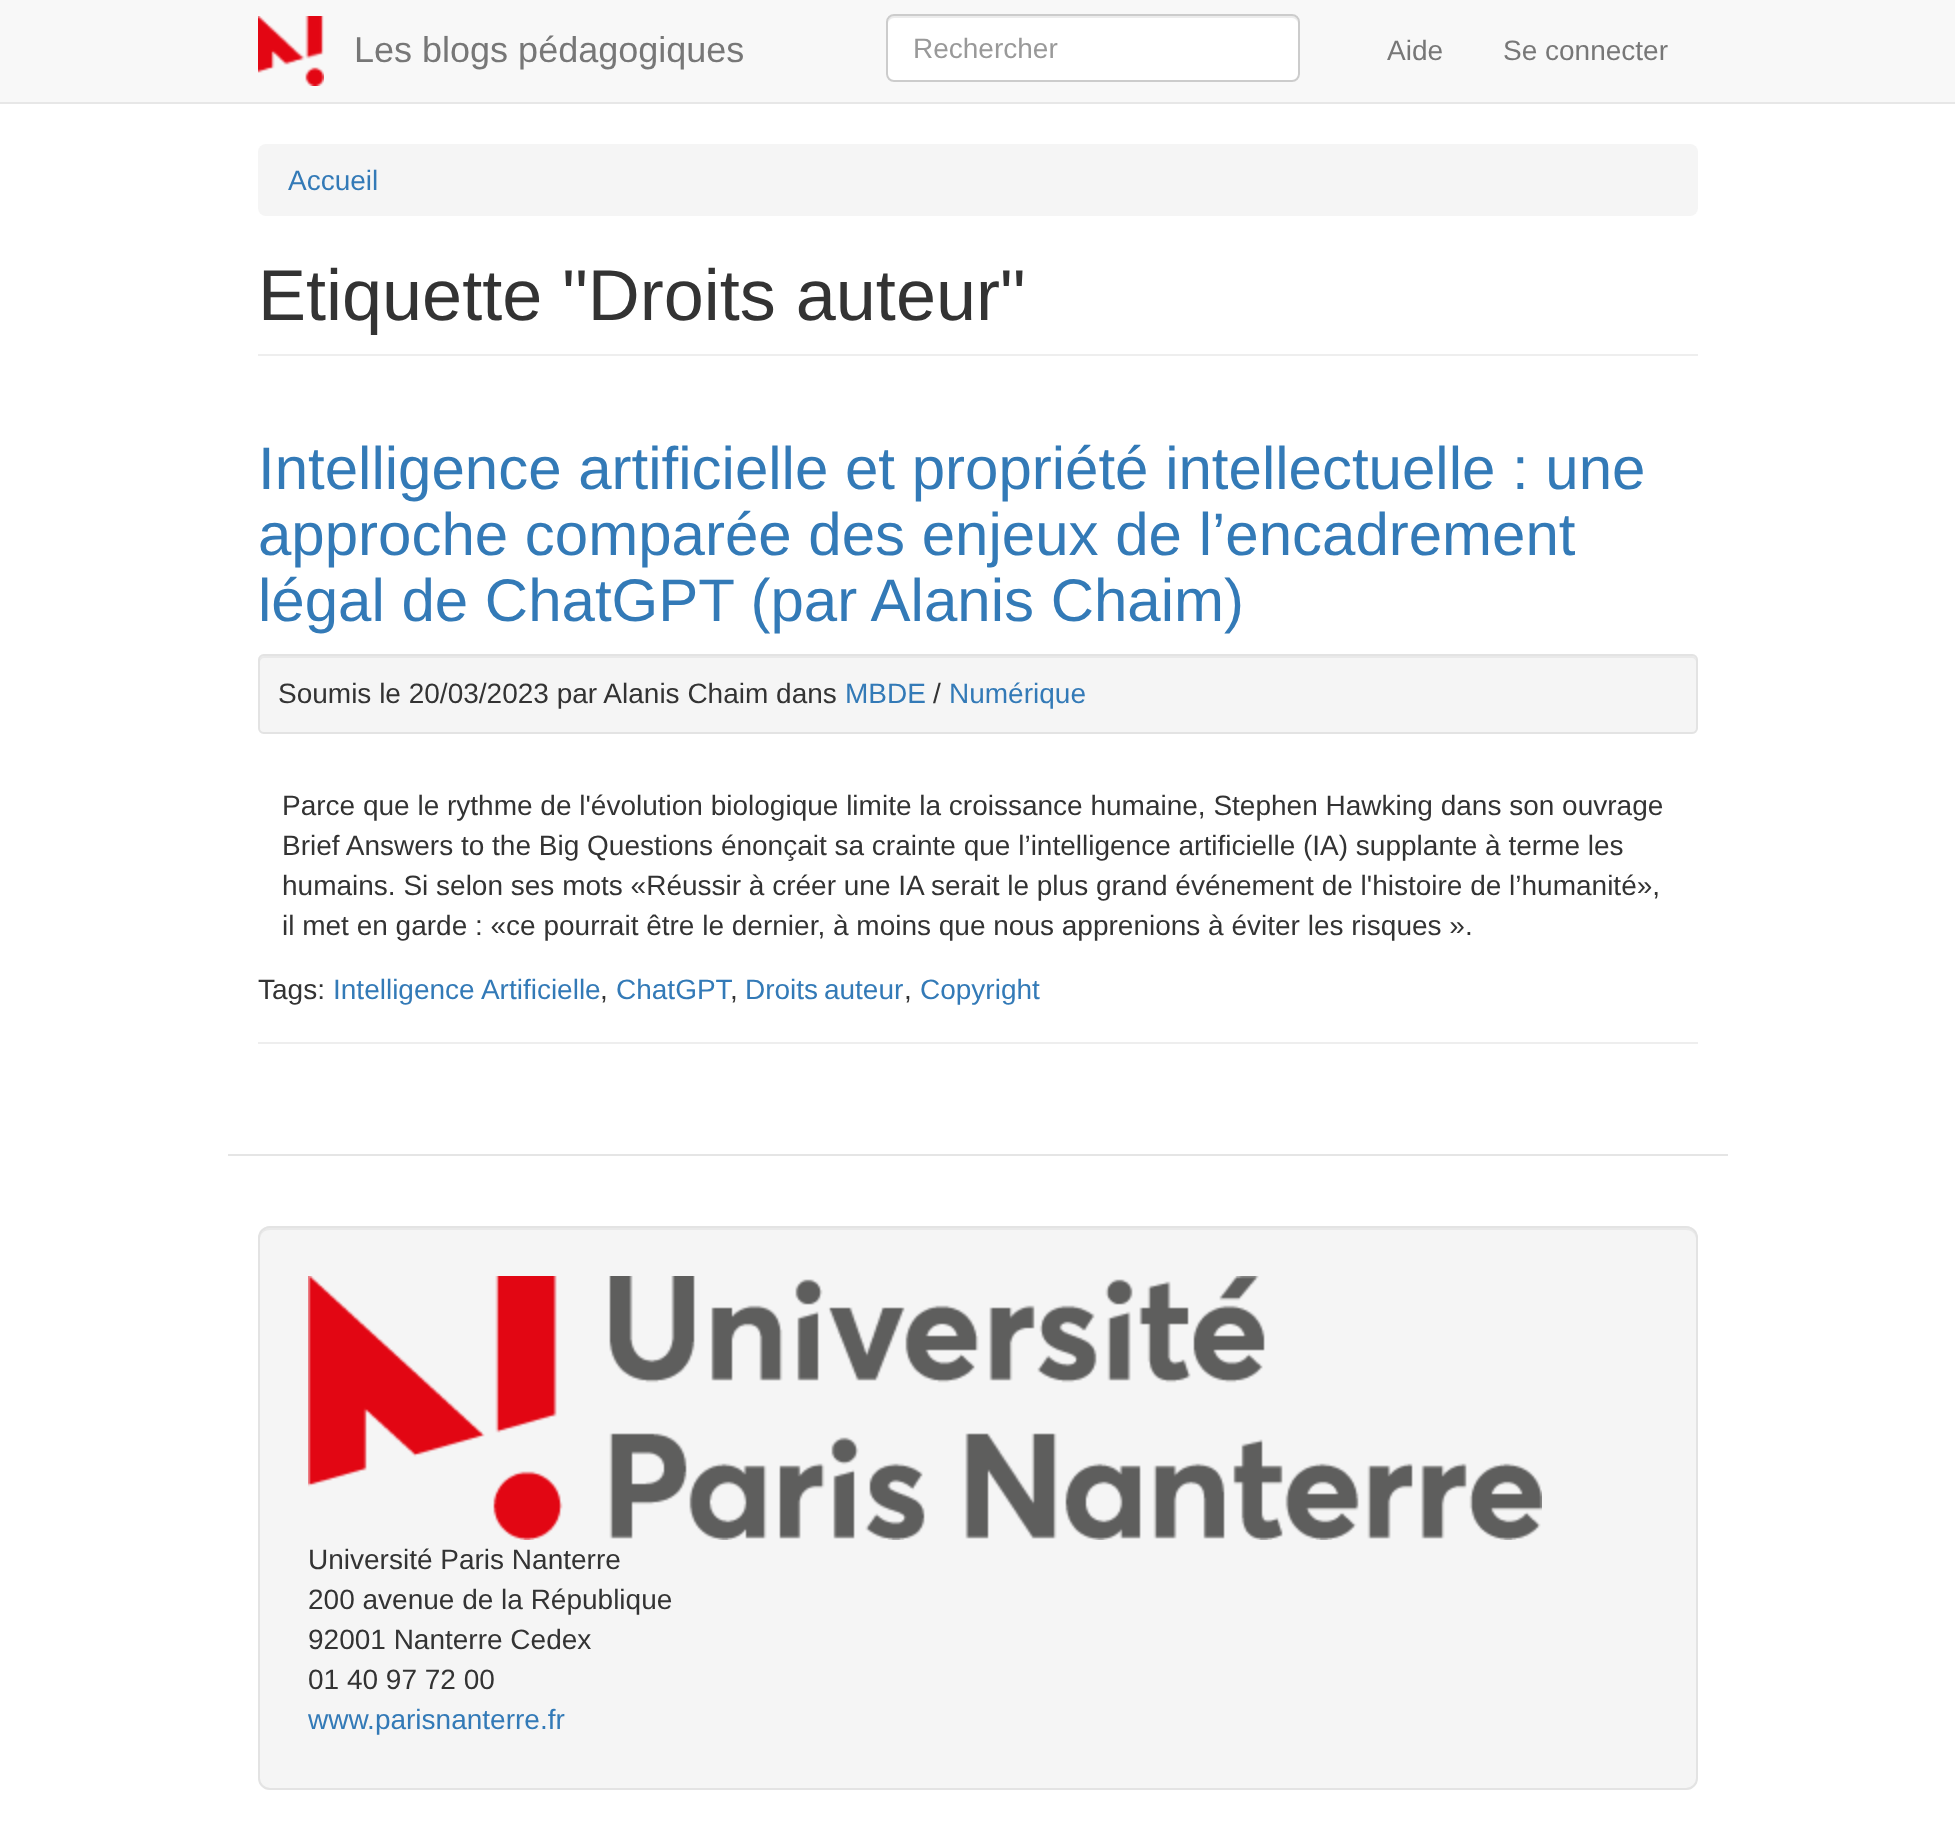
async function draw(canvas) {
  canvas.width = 1955
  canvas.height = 1827
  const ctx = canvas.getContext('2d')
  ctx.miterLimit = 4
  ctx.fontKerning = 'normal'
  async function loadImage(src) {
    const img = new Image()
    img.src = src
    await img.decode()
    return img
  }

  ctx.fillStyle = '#fff'
  ctx.fillRect(0, 0, 1955, 1827)
  ctx.fillStyle = '#f8f8f8'
  ctx.fillRect(0, 0, 1955, 102)
  ctx.fillStyle = '#e7e7e7'
  ctx.fillRect(0, 102, 1955, 2)
  ctx.drawImage(await loadImage('image0.png'), 258, 16, 66, 70)
  ctx.font = '36px Liberation Sans'
  ctx.fillStyle = '#777'
  ctx.fillText('Les blogs pédagogiques', 354, 62)
  ctx.fillStyle = '#fff'
  ctx.beginPath()
  ctx.roundRect(886, 14, 414, 68, 8)
  ctx.fill()
  ctx.fillStyle = '#ececec'
  ctx.beginPath()
  ctx.moveTo(894, 18)
  ctx.lineTo(1292, 18)
  ctx.bezierCurveTo(1295, 18, 1298, 21, 1298, 24)
  ctx.bezierCurveTo(1298, 20, 1297, 16, 1292, 16)
  ctx.lineTo(894, 16)
  ctx.bezierCurveTo(889, 16, 888, 20, 888, 24)
  ctx.bezierCurveTo(888, 21, 891, 18, 894, 18)
  ctx.closePath()
  ctx.fill()
  ctx.beginPath()
  ctx.roundRect(887, 15, 412, 66, 7)
  ctx.strokeStyle = '#ccc'
  ctx.lineWidth = 2
  ctx.stroke()
  ctx.font = '28px Liberation Sans'
  ctx.fillStyle = '#999'
  ctx.fillText('Rechercher', 913, 58)
  ctx.fillStyle = '#777'
  ctx.fillText('Aide', 1387, 60)
  ctx.fillText('Se connecter', 1503, 60)
  ctx.fillStyle = '#f5f5f5'
  ctx.beginPath()
  ctx.roundRect(258, 144, 1440, 72, 8)
  ctx.fill()
  ctx.fillStyle = '#337ab7'
  ctx.fillText('Accueil', 288, 190)
  ctx.fillStyle = '#eee'
  ctx.fillRect(258, 354, 1440, 2)
  ctx.font = '72px Liberation Sans'
  ctx.fillStyle = '#333'
  ctx.fillText('Etiquette "Droits auteur"', 258, 320)
  ctx.fillStyle = '#eee'
  ctx.fillRect(258, 1042, 1440, 2)
  ctx.font = '60px Liberation Sans'
  ctx.fillStyle = '#337ab7'
  ctx.fillText('Intelligence artificielle et propriété intellectuelle : une', 258, 489)
  ctx.fillText('approche comparée des enjeux de l’encadrement', 258, 555)
  ctx.fillText('légal de ChatGPT (par Alanis Chaim)', 258, 621)
  ctx.fillStyle = '#f5f5f5'
  ctx.beginPath()
  ctx.roundRect(258, 654, 1440, 80, 6)
  ctx.fill()
  ctx.fillStyle = '#e9e9e9'
  ctx.beginPath()
  ctx.moveTo(264, 658)
  ctx.lineTo(1692, 658)
  ctx.bezierCurveTo(1694, 658, 1696, 660, 1696, 662)
  ctx.bezierCurveTo(1696, 659, 1696, 656, 1692, 656)
  ctx.lineTo(264, 656)
  ctx.bezierCurveTo(260, 656, 260, 659, 260, 662)
  ctx.bezierCurveTo(260, 660, 262, 658, 264, 658)
  ctx.closePath()
  ctx.fill()
  ctx.beginPath()
  ctx.roundRect(259, 655, 1438, 78, 5)
  ctx.strokeStyle = '#e3e3e3'
  ctx.stroke()
  ctx.font = '28px Liberation Sans'
  ctx.fillStyle = '#333'
  ctx.fillText('Soumis le 20/03/2023 par Alanis Chaim dans', 278, 703)
  ctx.fillStyle = '#337ab7'
  ctx.fillText('MBDE', 845, 703)
  ctx.fillStyle = '#333'
  ctx.fillText('/', 933, 703)
  ctx.fillStyle = '#337ab7'
  ctx.fillText('Numérique', 949, 703)
  ctx.fillStyle = '#333'
  ctx.fillText('Parce que le rythme de l\'évolution biologique limite la croissance humaine, Stephen Hawking dans son ouvrage', 282, 815)
  ctx.fillText('Brief Answers to the Big Questions énonçait sa crainte que l’intelligence artificielle (IA) supplante à terme les', 282, 855)
  ctx.fillText('humains. Si selon ses mots «Réussir à créer une IA serait le plus grand événement de l\'histoire de l’humanité»,', 282, 895)
  ctx.fillText('il met en garde : «ce pourrait être le dernier, à moins que nous apprenions à éviter les risques ».', 282, 935)
  ctx.fillText('Tags:', 258, 999)
  ctx.fillStyle = '#337ab7'
  ctx.fillText('Intelligence Artificielle', 333, 999)
  ctx.fillStyle = '#333'
  ctx.fillText(',', 600, 999)
  ctx.fillStyle = '#337ab7'
  ctx.fillText('ChatGPT', 616, 999)
  ctx.fillStyle = '#333'
  ctx.fillText(',', 730, 999)
  ctx.wordSpacing = '-2px'
  ctx.fillStyle = '#337ab7'
  ctx.fillText('Droits auteur', 745, 999)
  ctx.wordSpacing = '0px'
  ctx.fillStyle = '#333'
  ctx.fillText(',', 904, 999)
  ctx.fillStyle = '#337ab7'
  ctx.fillText('Copyright', 920, 999)
  ctx.fillStyle = '#e5e5e5'
  ctx.fillRect(228, 1154, 1500, 2)
  ctx.fillStyle = '#f5f5f5'
  ctx.beginPath()
  ctx.roundRect(258, 1226, 1440, 564, 12)
  ctx.fill()
  ctx.fillStyle = '#e9e9e9'
  ctx.beginPath()
  ctx.moveTo(270, 1230)
  ctx.lineTo(1686, 1230)
  ctx.bezierCurveTo(1692, 1230, 1696, 1234, 1696, 1240)
  ctx.bezierCurveTo(1696, 1234, 1693, 1228, 1686, 1228)
  ctx.lineTo(270, 1228)
  ctx.bezierCurveTo(263, 1228, 260, 1234, 260, 1240)
  ctx.bezierCurveTo(260, 1234, 264, 1230, 270, 1230)
  ctx.closePath()
  ctx.fill()
  ctx.beginPath()
  ctx.roundRect(259, 1227, 1438, 562, 11)
  ctx.stroke()
  ctx.drawImage(await loadImage('image1.png'), 308, 1276, 1234, 264)
  ctx.fillStyle = '#333'
  ctx.fillText('Université Paris Nanterre', 308, 1569)
  ctx.fillText('200 avenue de la République', 308, 1609)
  ctx.fillText('92001 Nanterre Cedex', 308, 1649)
  ctx.fillText('01 40 97 72 00', 308, 1689)
  ctx.fillStyle = '#337ab7'
  ctx.fillText('www.parisnanterre.fr', 308, 1729)
}

draw(document.querySelector('canvas'))
